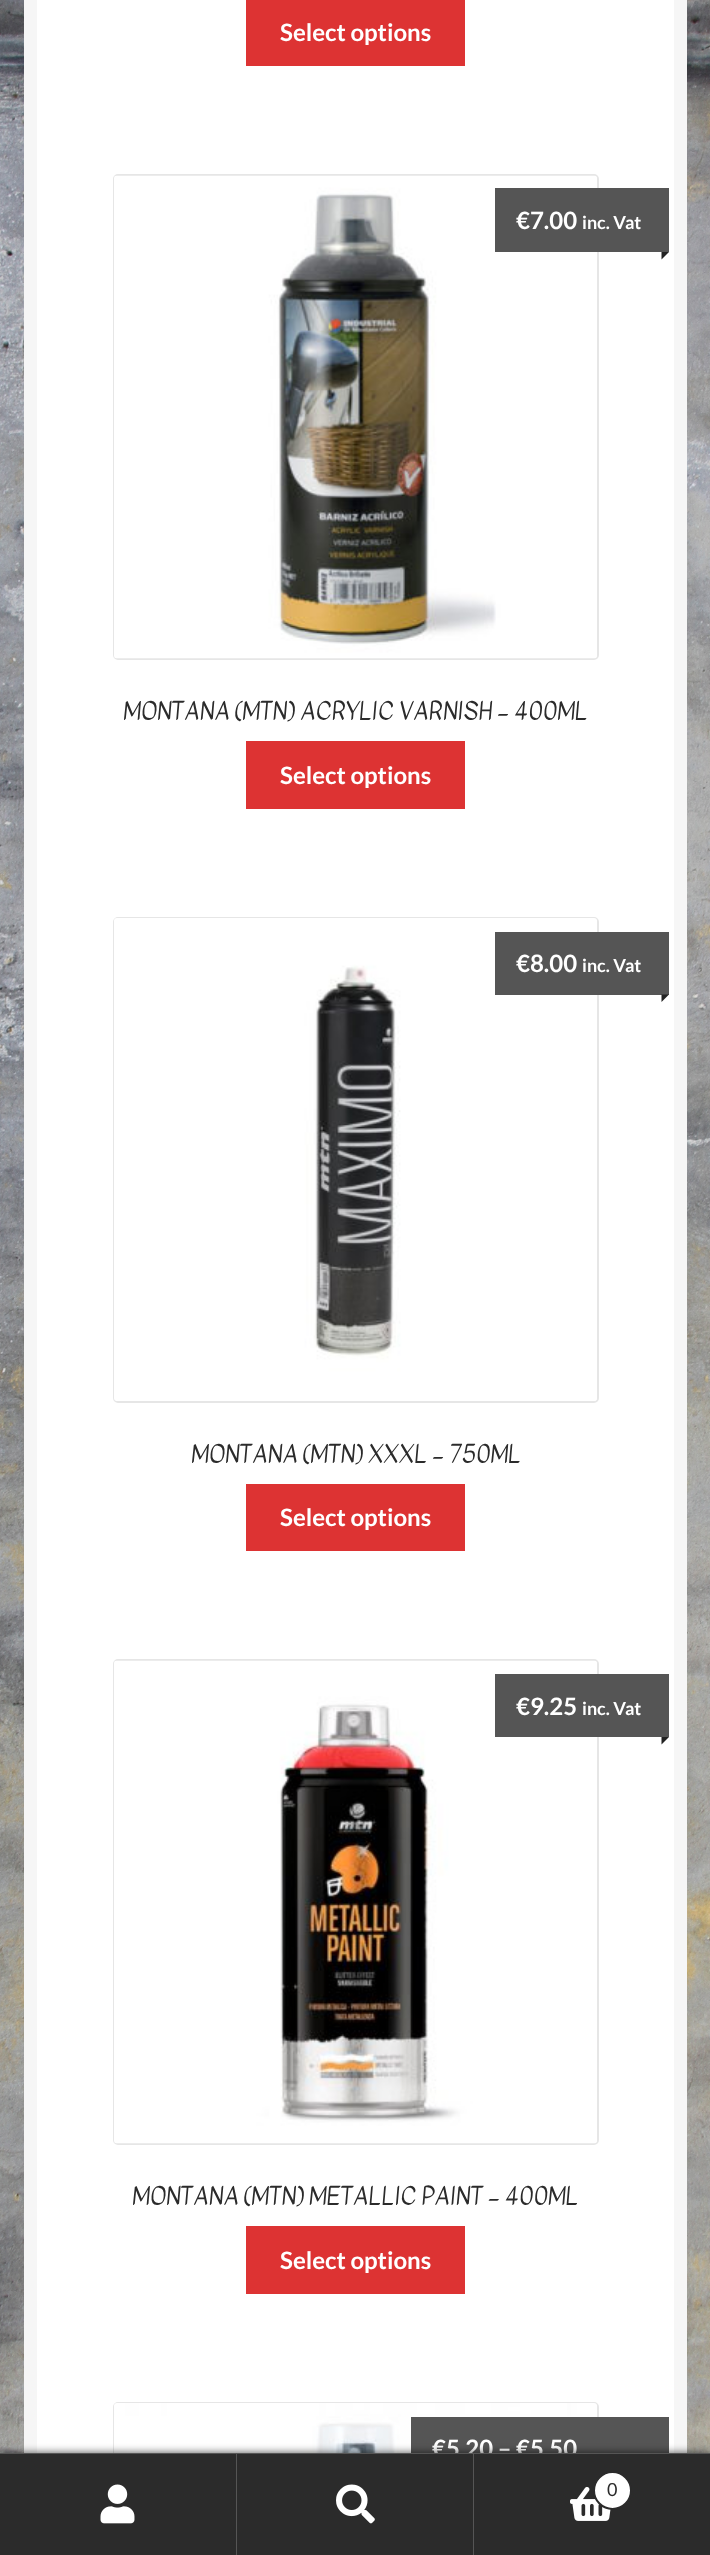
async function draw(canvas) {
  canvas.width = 710
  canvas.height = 2555
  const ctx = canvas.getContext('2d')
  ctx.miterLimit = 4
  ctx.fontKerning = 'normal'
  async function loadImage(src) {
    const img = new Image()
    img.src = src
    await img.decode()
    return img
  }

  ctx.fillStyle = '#fff'
  ctx.fillRect(0, 0, 710, 2555)
  ctx.drawImage(await loadImage('image0.png'), 0, 0, 710, 2453)
  ctx.fillRect(37, 0, 637, 2453)
  ctx.strokeStyle = '#f6f6f6'
  ctx.lineWidth = 13
  ctx.strokeRect(30.5, -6.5, 650, 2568)
  ctx.fillStyle = '#d33'
  ctx.fillRect(246, 0, 219, 66)
  ctx.font = 'bold 24px Lato'
  ctx.fillStyle = '#fff'
  ctx.fillText('Select options', 280, 41)
  ctx.beginPath()
  ctx.roundRect(114, 175, 484, 484, 4)
  ctx.strokeStyle = '#e6e6e6'
  ctx.lineWidth = 2
  ctx.stroke()
  ctx.drawImage(await loadImage('image1.png'), 114, 175, 483, 484)
  ctx.fillStyle = '#555'
  ctx.fillRect(495, 188, 174, 64)
  ctx.fillStyle = '#fff'
  ctx.fillText('€7.00', 516, 229)
  ctx.font = 'bold 18px Lato'
  ctx.fillText('inc. Vat', 582, 229)
  ctx.fillStyle = '#222'
  ctx.beginPath()
  ctx.moveTo(661.5, 252)
  ctx.lineTo(669, 252)
  ctx.lineTo(661.5, 259.5)
  ctx.closePath()
  ctx.fill()
  ctx.font = '24px Kavivanar'
  ctx.fillStyle = '#2b2b2b'
  ctx.fillText('MONTANA (MTN) ACRYLIC VARNISH – 400ML', 123, 719)
  ctx.fillStyle = '#d33'
  ctx.fillRect(246, 741, 219, 68)
  ctx.font = 'bold 24px Lato'
  ctx.fillStyle = '#fff'
  ctx.fillText('Select options', 280, 784)
  ctx.beginPath()
  ctx.roundRect(114, 918, 484, 484, 4)
  ctx.stroke()
  ctx.drawImage(await loadImage('image2.png'), 114, 918, 483, 483)
  ctx.fillStyle = '#555'
  ctx.beginPath()
  ctx.moveTo(503, 994)
  ctx.lineTo(503, 995)
  ctx.lineTo(669, 995)
  ctx.lineTo(669, 932)
  ctx.lineTo(662, 932)
  ctx.lineTo(662, 994)
  ctx.closePath()
  ctx.fill()
  ctx.fillRect(495, 932, 167, 63)
  ctx.fillStyle = '#fff'
  ctx.fillText('€8.00', 516, 972)
  ctx.font = 'bold 18px Lato'
  ctx.fillText('inc. Vat', 582, 972)
  ctx.fillStyle = '#222'
  ctx.beginPath()
  ctx.moveTo(661.5, 994.5)
  ctx.lineTo(669, 994.5)
  ctx.lineTo(661.5, 1002)
  ctx.closePath()
  ctx.fill()
  ctx.font = '24px Kavivanar'
  ctx.fillStyle = '#2b2b2b'
  ctx.fillText('MONTANA (MTN) XXXL – 750ML', 191, 1462)
  ctx.fillStyle = '#d33'
  ctx.fillRect(246, 1484, 219, 67)
  ctx.font = 'bold 24px Lato'
  ctx.fillStyle = '#fff'
  ctx.fillText('Select options', 280, 1526)
  ctx.beginPath()
  ctx.roundRect(114, 1660, 484, 484, 4)
  ctx.stroke()
  ctx.drawImage(await loadImage('image3.png'), 114, 1660, 483, 484)
  ctx.fillStyle = '#555'
  ctx.fillRect(495, 1674, 174, 63)
  ctx.fillStyle = '#fff'
  ctx.fillText('€9.25', 516, 1715)
  ctx.font = 'bold 18px Lato'
  ctx.fillText('inc. Vat', 582, 1715)
  ctx.fillStyle = '#222'
  ctx.beginPath()
  ctx.moveTo(661.5, 1737)
  ctx.lineTo(669, 1737)
  ctx.lineTo(661.5, 1744.5)
  ctx.closePath()
  ctx.fill()
  ctx.font = '24px Kavivanar'
  ctx.fillStyle = '#2b2b2b'
  ctx.fillText('MONTANA (MTN) METALLIC PAINT – 400ML', 132, 2204)
  ctx.fillStyle = '#d33'
  ctx.fillRect(246, 2226, 219, 68)
  ctx.font = 'bold 24px Lato'
  ctx.fillStyle = '#fff'
  ctx.fillText('Select options', 280, 2269)
  ctx.beginPath()
  ctx.roundRect(114, 2403, 484, 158, 4)
  ctx.stroke()
  ctx.drawImage(await loadImage('image4.png'), 114, 2403, 483, 50)
  ctx.fillStyle = '#555'
  ctx.fillRect(411, 2417, 258, 36)
  ctx.fillStyle = '#fff'
  ctx.fillText('€5.20 – €5.50', 432, 2457)
  ctx.fillStyle = '#000000b3'
  ctx.filter = 'blur(4.5px)'
  ctx.beginPath()
  ctx.rect(0, 2453, 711, 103)
  ctx.fill()
  ctx.filter = 'none'
  ctx.fillStyle = '#555'
  ctx.fillRect(0, 2453, 710, 1)
  ctx.fillStyle = '#2b2b2b'
  ctx.fillRect(0, 2454, 710, 101)
  ctx.fillStyle = '#ffffff33'
  ctx.fillRect(236, 2454, 1, 101)
  ctx.drawImage(await loadImage('image5.png'), 100, 2484, 35, 40)
  ctx.fillRect(473, 2454, 1, 101)
  ctx.drawImage(await loadImage('image6.png'), 336, 2484, 39, 40)
  ctx.drawImage(await loadImage('image7.png'), 570, 2486, 41, 35)
  ctx.fillStyle = '#fff'
  ctx.beginPath()
  ctx.arc(612.5, 2490.5, 18.5, 0, 2 * Math.PI)
  ctx.fill()
  ctx.strokeStyle = '#2b2b2b'
  ctx.stroke()
  ctx.font = '18px Lato'
  ctx.fillStyle = '#2b2b2b'
  ctx.fillText('0', 607, 2496)
}

draw(document.querySelector('canvas'))
